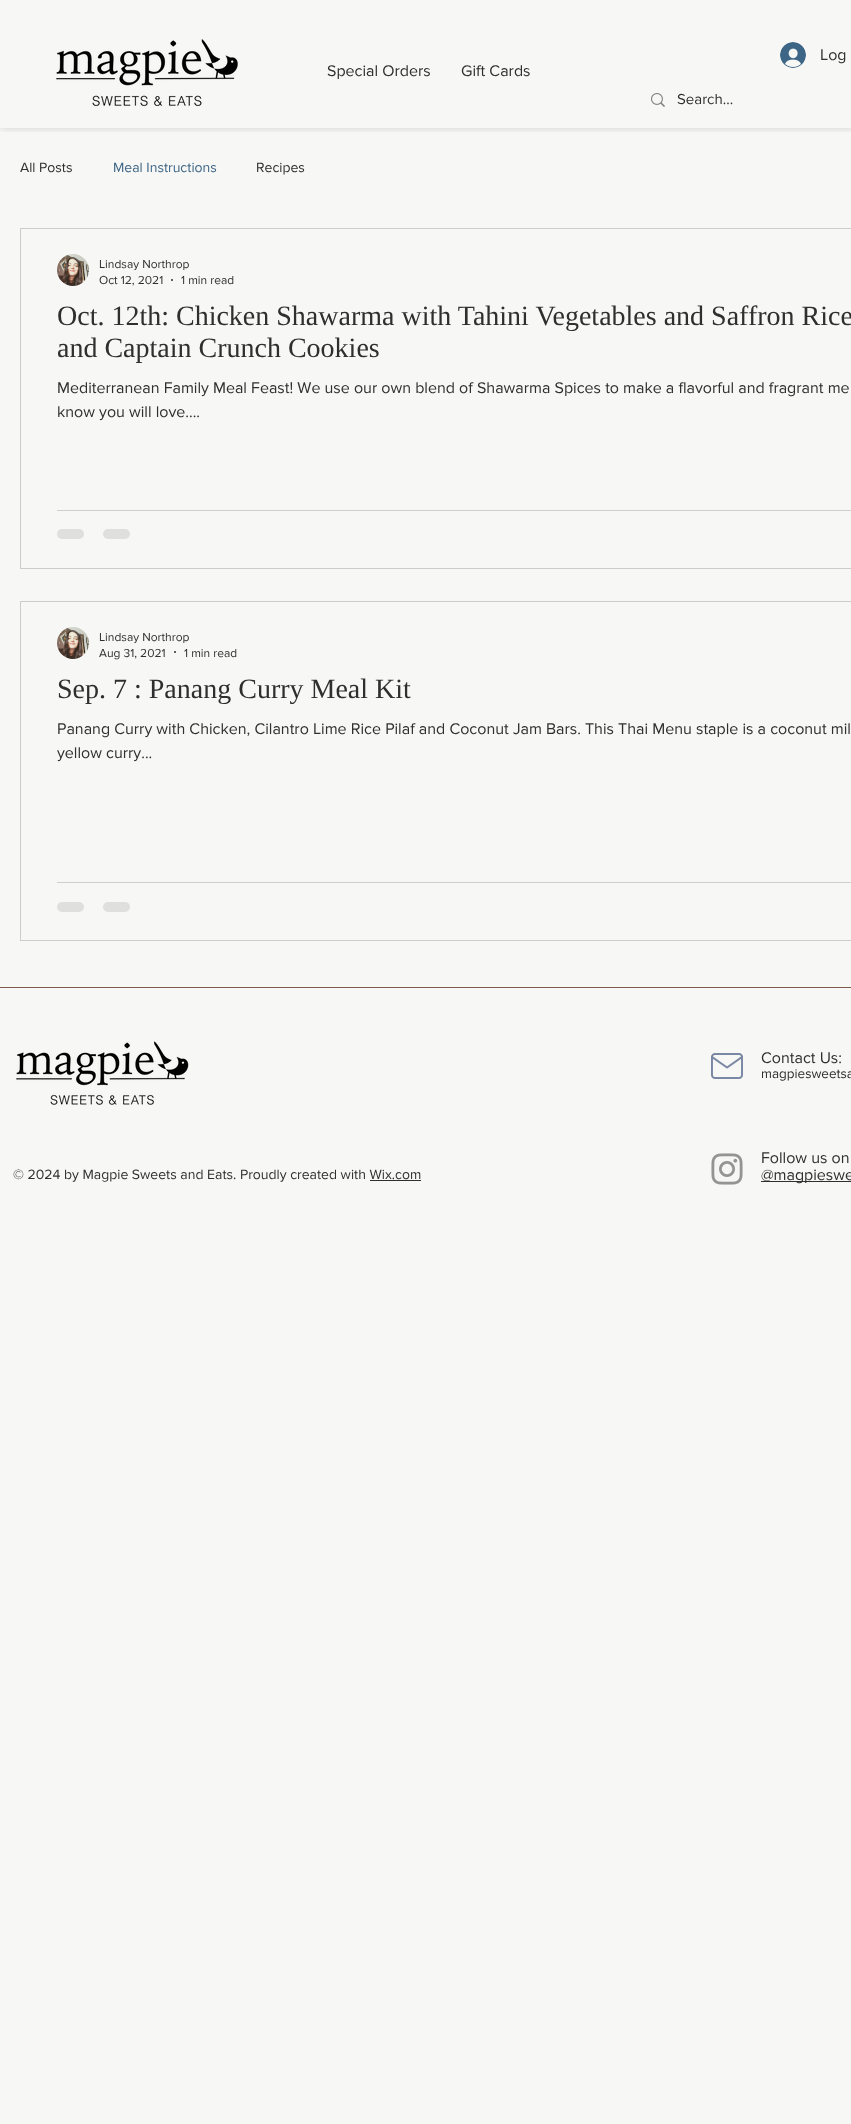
async function draw(canvas) {
  canvas.width = 851
  canvas.height = 2124
  const ctx = canvas.getContext('2d')
  ctx.miterLimit = 4
  ctx.fontKerning = 'normal'
  async function loadImage(src) {
    const img = new Image()
    img.src = src
    await img.decode()
    return img
  }

  ctx.fillStyle = '#f7f7f5'
  ctx.fillRect(0, 0, 851, 2124)
  ctx.save()
  ctx.beginPath()
  ctx.rect(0, 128, 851, 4)
  ctx.clip()
  ctx.fillStyle = '#00000026'
  ctx.filter = 'blur(4px)'
  ctx.beginPath()
  ctx.rect(0, 0, 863, 128)
  ctx.fill()
  ctx.filter = 'none'
  ctx.restore()
  ctx.drawImage(await loadImage('image0.png'), 56, 39, 182, 68)
  ctx.font = '16px "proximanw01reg"'
  ctx.fillStyle = '#2f2f2f'
  ctx.fillText('Special Orders', 327, 76)
  ctx.fillText('Gift Cards', 461, 76)
  ctx.drawImage(await loadImage('image1.png'), 780, 42, 26, 26)
  ctx.fillText('Log', 820, 60)
  ctx.drawImage(await loadImage('image2.png'), 651, 93, 14, 14)
  ctx.font = '15px "proximanw01reg"'
  ctx.fillText('Search...', 677, 104)
  ctx.font = '14px "proximanw01reg"'
  ctx.fillText('All Posts', 20, 172)
  ctx.fillStyle = '#3d6585'
  ctx.fillText('Meal Instructions', 113, 172)
  ctx.fillStyle = '#2f2f2f'
  ctx.fillText('Recipes', 256, 172)
  ctx.strokeStyle = '#ccccca'
  ctx.strokeRect(20.5, 228.5, 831, 340)
  ctx.drawImage(await loadImage('image3.png'), 57, 254, 32, 32)
  ctx.save()
  ctx.beginPath()
  ctx.rect(99, 257, 90, 13)
  ctx.clip()
  ctx.font = '12px "proximanw01reg"'
  ctx.fillText('Lindsay Northrop', 99, 268)
  ctx.restore()
  ctx.font = '12px "proximanw01reg"'
  ctx.fillText('Oct 12, 2021', 99, 284)
  ctx.beginPath()
  ctx.arc(172, 280, 1, 0, 2 * Math.PI)
  ctx.fill()
  ctx.fillText('1 min read', 181, 284)
  ctx.font = '28px Liberation Serif'
  ctx.fillText('Oct. 12th: Chicken Shawarma with Tahini Vegetables and Saffron Rice', 57, 325)
  ctx.fillText('and Captain Crunch Cookies', 57, 357)
  ctx.font = '16px "proximanw01reg"'
  ctx.fillText('Mediterranean Family Meal Feast! We use our own blend of Shawarma Spices to make a flavorful and fragrant me', 57, 393)
  ctx.fillText('know you will love....', 57, 417)
  ctx.fillStyle = '#cfcfcd'
  ctx.fillRect(57, 510, 794, 1)
  ctx.fillStyle = '#dfdfdd'
  ctx.beginPath()
  ctx.roundRect(57, 529, 27, 10, 5)
  ctx.fill()
  ctx.beginPath()
  ctx.roundRect(103, 529, 27, 10, 5)
  ctx.fill()
  ctx.strokeRect(20.5, 601.5, 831, 339)
  ctx.drawImage(await loadImage('image3.png'), 57, 627, 32, 32)
  ctx.save()
  ctx.beginPath()
  ctx.rect(99, 630, 90, 13)
  ctx.clip()
  ctx.font = '12px "proximanw01reg"'
  ctx.fillStyle = '#2f2f2f'
  ctx.fillText('Lindsay Northrop', 99, 641)
  ctx.restore()
  ctx.font = '12px "proximanw01reg"'
  ctx.fillStyle = '#2f2f2f'
  ctx.fillText('Aug 31, 2021', 99, 657)
  ctx.beginPath()
  ctx.arc(175, 652, 1, 0, 2 * Math.PI)
  ctx.fill()
  ctx.fillText('1 min read', 184, 657)
  ctx.font = '28px Liberation Serif'
  ctx.fillText('Sep. 7 : Panang Curry Meal Kit', 57, 698)
  ctx.font = '16px "proximanw01reg"'
  ctx.fillText('Panang Curry with Chicken, Cilantro Lime Rice Pilaf and Coconut Jam Bars. This Thai Menu staple is a coconut mil', 57, 734)
  ctx.fillText('yellow curry...', 57, 758)
  ctx.fillStyle = '#cfcfcd'
  ctx.fillRect(57, 882, 794, 1)
  ctx.fillStyle = '#dfdfdd'
  ctx.beginPath()
  ctx.roundRect(57, 902, 27, 10, 5)
  ctx.fill()
  ctx.beginPath()
  ctx.roundRect(103, 902, 27, 10, 5)
  ctx.fill()
  ctx.fillStyle = '#7d5b4c'
  ctx.fillRect(0, 987, 851, 1)
  ctx.drawImage(await loadImage('image4.png'), 16, 1041, 173, 64)
  ctx.drawImage(await loadImage('image5.png'), 711, 1053, 32, 26)
  ctx.fillStyle = '#2f2f2f'
  ctx.fillText('Contact Us:', 761, 1063)
  ctx.font = '13.5px "proximanw01reg"'
  ctx.fillText('magpiesweetsa', 761, 1078)
  ctx.font = '14px "proximanw01reg"'
  ctx.fillText('© 2024 by Magpie Sweets and Eats. Proudly created with Wix.com', 13, 1179)
  ctx.fillRect(370, 1180, 51, 1)
  ctx.drawImage(await loadImage('image6.png'), 711, 1153, 32, 32)
  ctx.font = '16px "proximanw01reg"'
  ctx.fillText('Follow us on', 761, 1163)
  ctx.fillRect(761, 1181, 90, 1)
  ctx.fillText('@magpieswe', 761, 1180)
}

draw(document.querySelector('canvas'))
